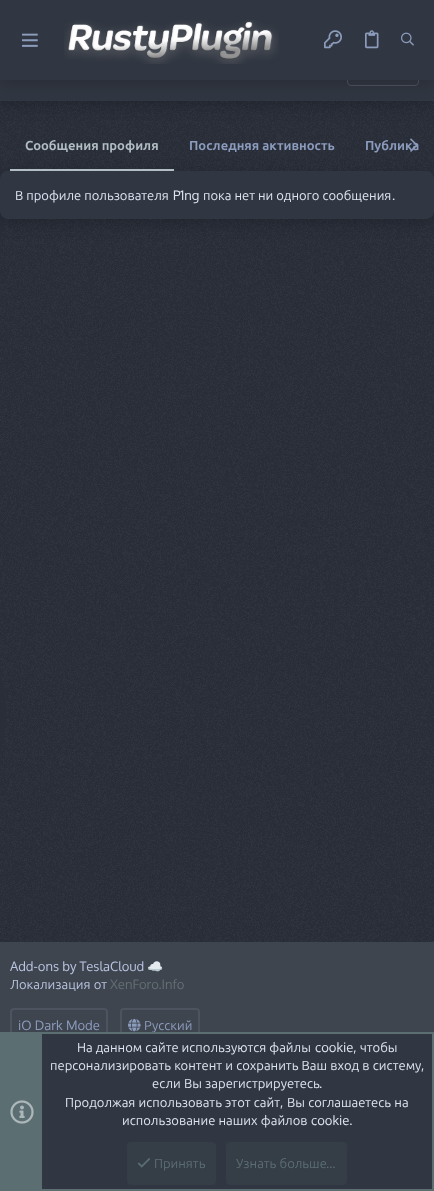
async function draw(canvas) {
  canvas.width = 434
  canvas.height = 1191
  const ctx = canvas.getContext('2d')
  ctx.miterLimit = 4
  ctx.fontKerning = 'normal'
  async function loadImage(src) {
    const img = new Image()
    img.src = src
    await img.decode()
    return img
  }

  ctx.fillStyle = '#292e39'
  ctx.fillRect(0, 0, 434, 1191)
  ctx.drawImage(await loadImage('image5.png'), 0, 101, 434, 841)
  ctx.fillStyle = '#00000033'
  ctx.filter = 'blur(7.5px)'
  ctx.beginPath()
  ctx.rect(0, -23, 434, 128)
  ctx.fill()
  ctx.filter = 'none'
  ctx.fillStyle = '#313742'
  ctx.fillRect(0, 80, 434, 21)
  ctx.beginPath()
  ctx.roundRect(347.5, 56.5, 71, 29, 3.5)
  ctx.strokeStyle = '#4d5460'
  ctx.stroke()
  ctx.fillStyle = '#00000033'
  ctx.filter = 'blur(7.5px)'
  ctx.beginPath()
  ctx.rect(0, 4, 434, 80)
  ctx.fill()
  ctx.filter = 'none'
  ctx.fillStyle = '#313742'
  ctx.fillRect(0, 0, 434, 80)
  ctx.drawImage(await loadImage('image0.png'), 22, 33, 16, 14)
  ctx.drawImage(await loadImage('image1.png'), 64, 20, 215, 44)
  ctx.drawImage(await loadImage('image2.png'), 324, 30, 18, 19)
  ctx.drawImage(await loadImage('image3.png'), 365, 30, 14, 19)
  ctx.drawImage(await loadImage('image4.png'), 401, 32, 13, 14)
  ctx.fillStyle = '#00000033'
  ctx.filter = 'blur(7.5px)'
  ctx.beginPath()
  ctx.roundRect(0, 175, 434, 48, 8)
  ctx.fill()
  ctx.filter = 'none'
  ctx.font = 'bold 13px Ubuntu'
  ctx.fillStyle = '#8c9cbd'
  ctx.fillText('Публика', 365, 150)
  ctx.drawImage(await loadImage('image6.png'), 410, 138, 7, 14)
  ctx.fillStyle = '#b2bec3'
  ctx.fillRect(10, 169, 164, 2)
  ctx.fillText('Сообщения профиля', 25, 150)
  ctx.fillStyle = '#8c9cbd'
  ctx.fillText('Последняя активность', 189, 150)
  ctx.fillStyle = '#313742'
  ctx.beginPath()
  ctx.roundRect(0, 171, 434, 48, 8)
  ctx.fill()
  ctx.font = '13px Ubuntu'
  ctx.fillStyle = '#dee5f2'
  ctx.fillText('В профиле пользователя', 15, 200)
  ctx.font = '13px Oxygen'
  ctx.fillText('P1ng', 173, 200)
  ctx.font = '13px Ubuntu'
  ctx.fillText('пока нет ни одного сообщения', 203, 200)
  ctx.font = '13px Oxygen'
  ctx.fillText('.', 392, 200)
  ctx.fillStyle = '#3f454f'
  ctx.fillRect(0, 942, 434, 90)
  ctx.fillStyle = '#b8c4e0'
  ctx.fillText('Add-ons by TeslaCloud', 10, 971)
  ctx.font = '13px Noto Color Emoji'
  ctx.fillText('☁️', 147, 971)
  ctx.wordSpacing = '0.25px'
  ctx.font = '13px Ubuntu'
  ctx.fillText('Локализация от', 10, 989)
  ctx.wordSpacing = '0px'
  ctx.font = '13px Oxygen'
  ctx.fillStyle = '#636e72'
  ctx.fillText('XenForo.Info', 110, 989)
  ctx.beginPath()
  ctx.roundRect(11, 1009, 96, 33, 3)
  ctx.lineWidth = 2
  ctx.stroke()
  ctx.fillStyle = '#8c9cbd'
  ctx.fillText('iO Dark Mode', 18, 1030)
  ctx.beginPath()
  ctx.roundRect(121, 1009, 78, 33, 3)
  ctx.stroke()
  ctx.drawImage(await loadImage('image7.png'), 128, 1018, 13, 14)
  ctx.font = '13px Ubuntu'
  ctx.fillText('Русский', 144, 1030)
  ctx.fillStyle = '#313742'
  ctx.fillRect(42, 1034, 390, 155)
  ctx.strokeStyle = '#5b6e72'
  ctx.strokeRect(1, 1033, 432, 157)
  ctx.fillStyle = '#5b6e72'
  ctx.fillRect(2, 1034, 40, 155)
  ctx.drawImage(await loadImage('image8.png'), 10, 1100, 24, 24)
  ctx.fillStyle = '#dee5f2'
  ctx.fillText('На данном сайте используются файлы', 77, 1052)
  ctx.font = '13px Oxygen'
  ctx.fillText('cookie,', 315, 1052)
  ctx.font = '13px Ubuntu'
  ctx.fillText('чтобы', 360, 1052)
  ctx.wordSpacing = '0.25px'
  ctx.fillText('персонализировать контент и сохранить Ваш вход в систему', 50, 1070)
  ctx.wordSpacing = '0px'
  ctx.font = '13px Oxygen'
  ctx.fillText(',', 421, 1070)
  ctx.wordSpacing = '0.25px'
  ctx.font = '13px Ubuntu'
  ctx.fillText('если Вы зарегистрируетесь', 152, 1088)
  ctx.wordSpacing = '0px'
  ctx.font = '13px Oxygen'
  ctx.fillText('.', 319, 1088)
  ctx.wordSpacing = '0.25px'
  ctx.font = '13px Ubuntu'
  ctx.fillText('Продолжая использовать этот сайт', 65, 1107)
  ctx.wordSpacing = '0px'
  ctx.font = '13px Oxygen'
  ctx.fillText(',', 280, 1107)
  ctx.wordSpacing = '0.25px'
  ctx.font = '13px Ubuntu'
  ctx.fillText('Вы соглашаетесь на', 287, 1107)
  ctx.fillText('использование наших файлов', 122, 1125)
  ctx.wordSpacing = '0px'
  ctx.font = '13px Oxygen'
  ctx.fillText('cookie.', 311, 1125)
  ctx.fillStyle = '#353d47'
  ctx.beginPath()
  ctx.roundRect(127, 1142, 89, 43, 4)
  ctx.fill()
  ctx.drawImage(await loadImage('image9.png'), 137, 1158, 13, 10)
  ctx.font = '13px Ubuntu'
  ctx.fillStyle = '#5b6e72'
  ctx.fillText('Принять', 154, 1168)
  ctx.fillStyle = '#353d47'
  ctx.beginPath()
  ctx.roundRect(226, 1142, 121, 43, 4)
  ctx.fill()
  ctx.wordSpacing = '0.25px'
  ctx.fillStyle = '#5b6e72'
  ctx.fillText('Узнать больше', 236, 1168)
  ctx.wordSpacing = '0px'
  ctx.font = '13px Oxygen'
  ctx.fillText('...', 326, 1168)
}

draw(document.querySelector('canvas'))
